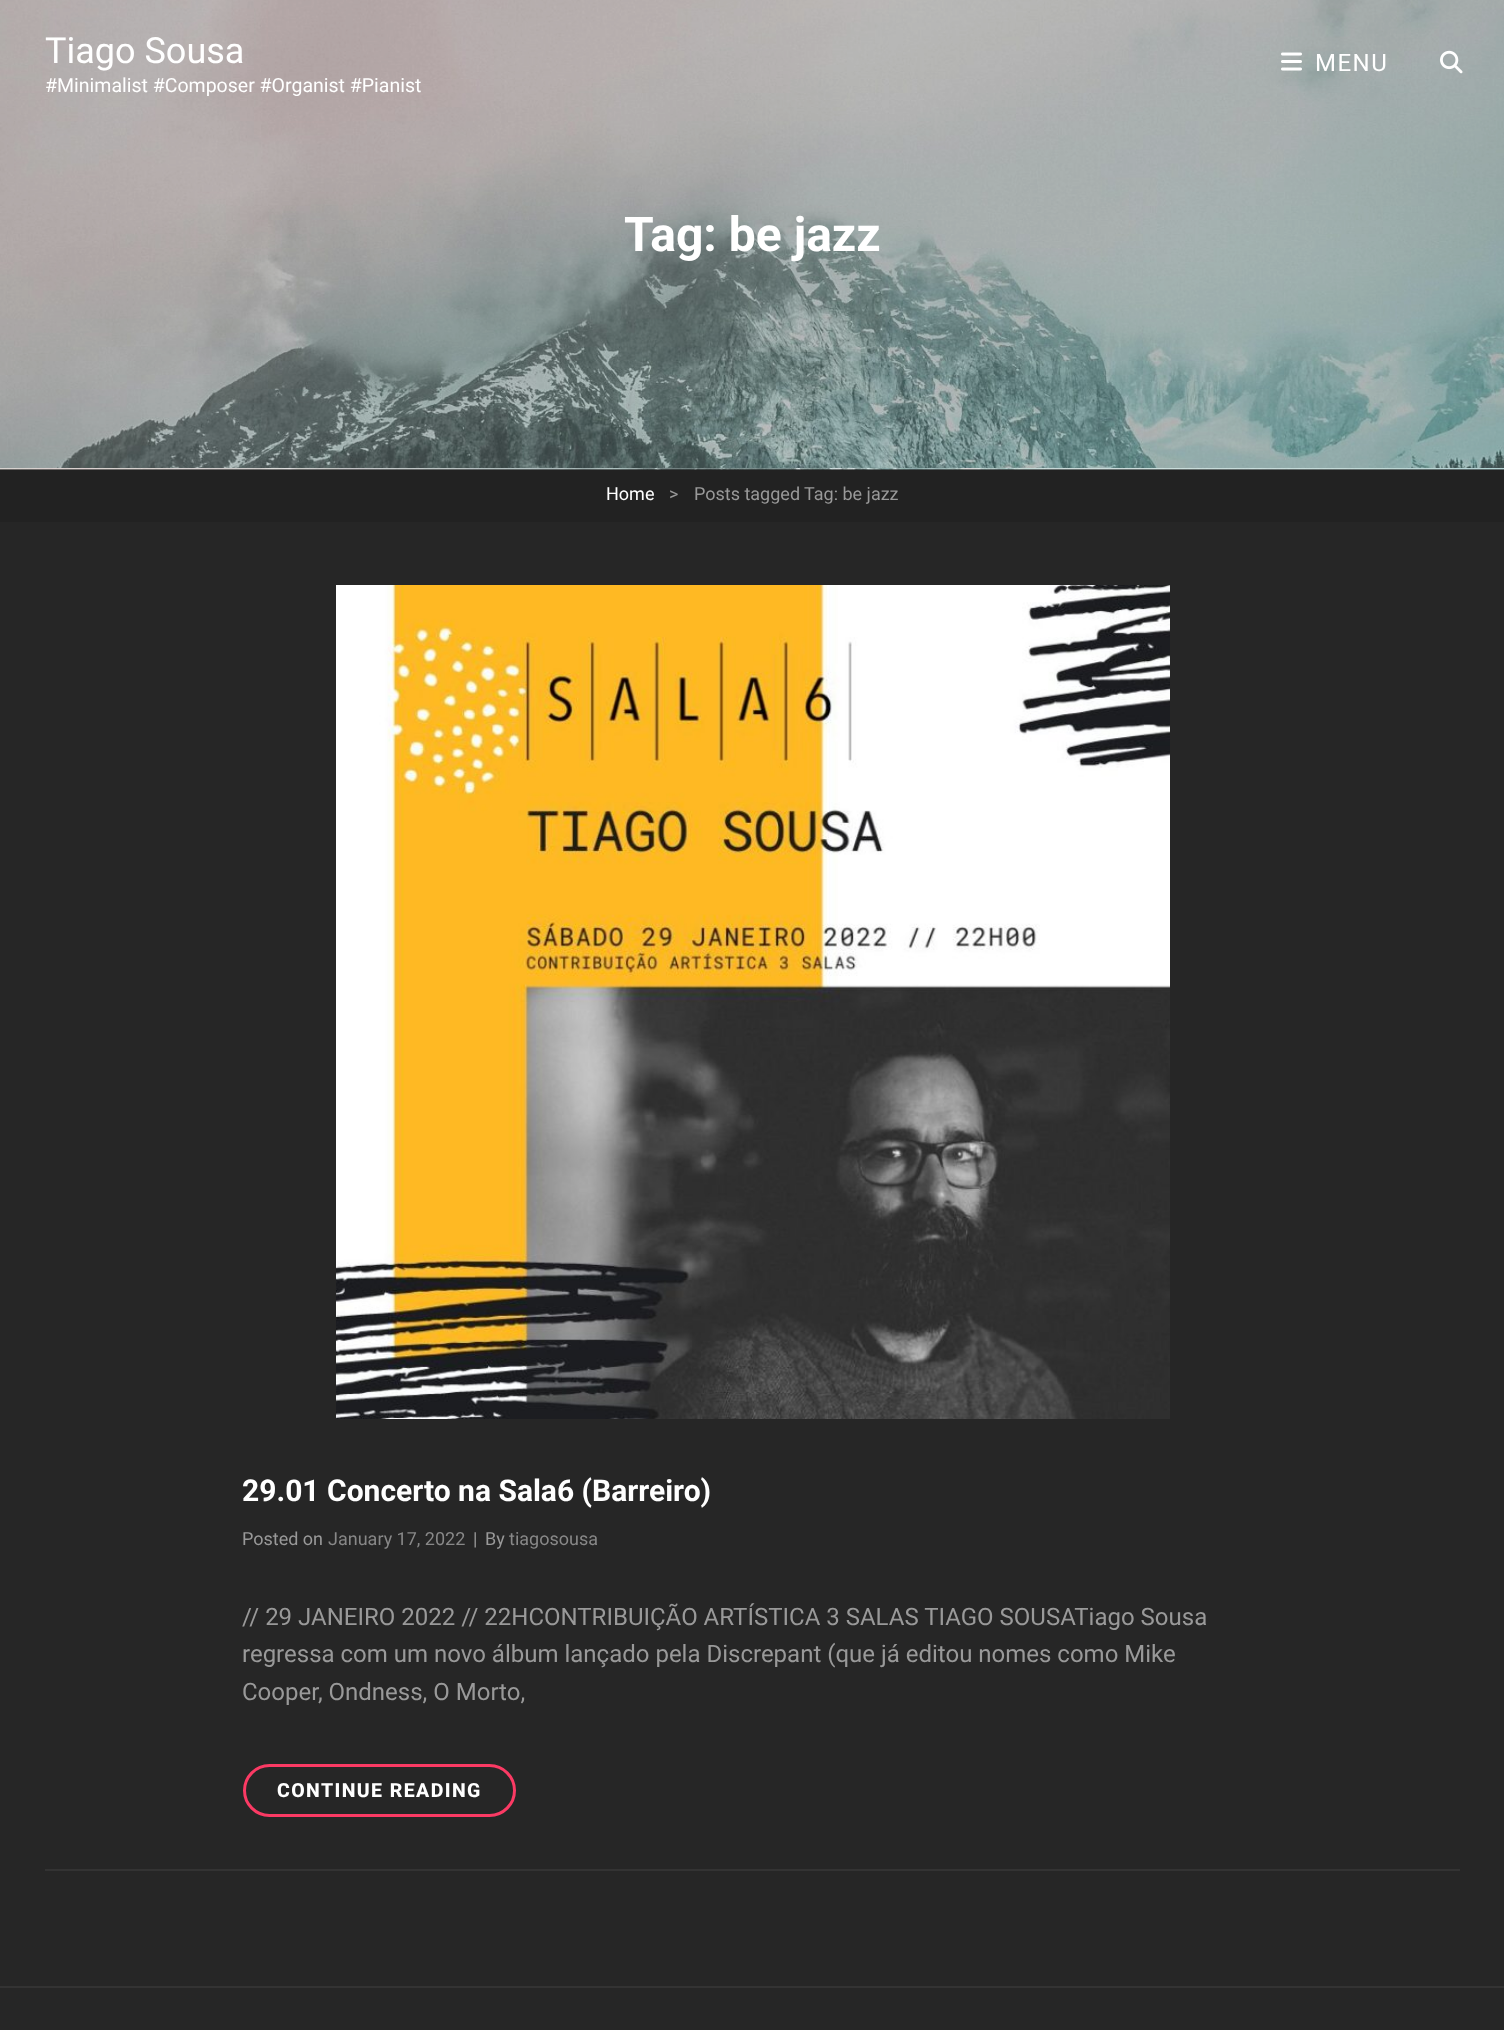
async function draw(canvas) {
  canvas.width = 1504
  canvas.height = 2030
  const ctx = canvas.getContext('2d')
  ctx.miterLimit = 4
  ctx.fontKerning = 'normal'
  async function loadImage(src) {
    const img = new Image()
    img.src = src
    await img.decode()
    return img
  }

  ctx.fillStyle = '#262626'
  ctx.fillRect(0, 0, 1504, 2030)
  ctx.drawImage(await loadImage('image2.png'), 0, 0, 1504, 468)
  ctx.font = '36px Roboto'
  ctx.fillStyle = '#fff'
  ctx.fillText('Tiago Sousa', 45, 63)
  ctx.font = '19.5px Roboto'
  ctx.fillText('#Minimalist #Composer #Organist #Pianist', 45, 92)
  ctx.drawImage(await loadImage('image0.png'), 1281, 52, 21, 19)
  ctx.letterSpacing = '1.5px'
  ctx.font = '24px Roboto'
  ctx.fillText('MENU', 1315, 71)
  ctx.drawImage(await loadImage('image1.png'), 1440, 50, 23, 24)
  ctx.fillStyle = '#000'
  ctx.fillRect(0, 469, 1504, 1)
  ctx.letterSpacing = '0px'
  ctx.font = 'bold 48px Roboto'
  ctx.fillStyle = '#fff'
  ctx.fillText('Tag: be jazz', 624, 251)
  ctx.drawImage(await loadImage('image3.png'), 0, 468, 1504, 2)
  ctx.fillStyle = '#222'
  ctx.fillRect(0, 470, 1504, 52)
  ctx.font = '18px Roboto'
  ctx.fillStyle = '#fff'
  ctx.fillText('Home', 606, 500)
  ctx.fillStyle = '#999'
  ctx.fillText('>', 669, 500)
  ctx.fillText('Posts tagged', 694, 500)
  ctx.fillText('Tag: be jazz', 804, 500)
  ctx.fillStyle = '#333'
  ctx.fillRect(0, 1986, 1504, 2)
  ctx.fillRect(45, 1869, 1415, 2)
  ctx.drawImage(await loadImage('image4.png'), 336, 585, 834, 834)
  ctx.font = 'bold 30px Roboto'
  ctx.fillStyle = '#fff'
  ctx.fillText('29.01 Concerto na Sala6 (Barreiro)', 242, 1501)
  ctx.font = '18px Roboto'
  ctx.fillStyle = '#999'
  ctx.fillText('Posted on', 242, 1545)
  ctx.fillStyle = '#888'
  ctx.fillText('January 17, 2022', 328, 1545)
  ctx.fillStyle = '#999'
  ctx.fillText('|', 473, 1545)
  ctx.fillText('By', 485, 1545)
  ctx.fillStyle = '#888'
  ctx.fillText('tiagosousa', 509, 1545)
  ctx.font = '24px Roboto'
  ctx.fillStyle = '#999'
  ctx.fillText('// 29 JANEIRO 2022 // 22HCONTRIBUIÇÃO ARTÍSTICA 3 SALAS TIAGO SOUSATiago Sousa', 242, 1625)
  ctx.fillText('regressa com um novo álbum lançado pela Discrepant (que já editou nomes como Mike', 242, 1662)
  ctx.fillText('Cooper, Ondness, O Morto,', 242, 1700)
  ctx.beginPath()
  ctx.roundRect(244.5, 1765.5, 270, 50, 25)
  ctx.strokeStyle = '#fb3a64'
  ctx.lineWidth = 3
  ctx.stroke()
  ctx.letterSpacing = '1.4px'
  ctx.font = '800 19.5px Roboto'
  ctx.fillStyle = '#fff'
  ctx.fillText('CONTINUE READING', 277, 1797)
}

draw(document.querySelector('canvas'))
